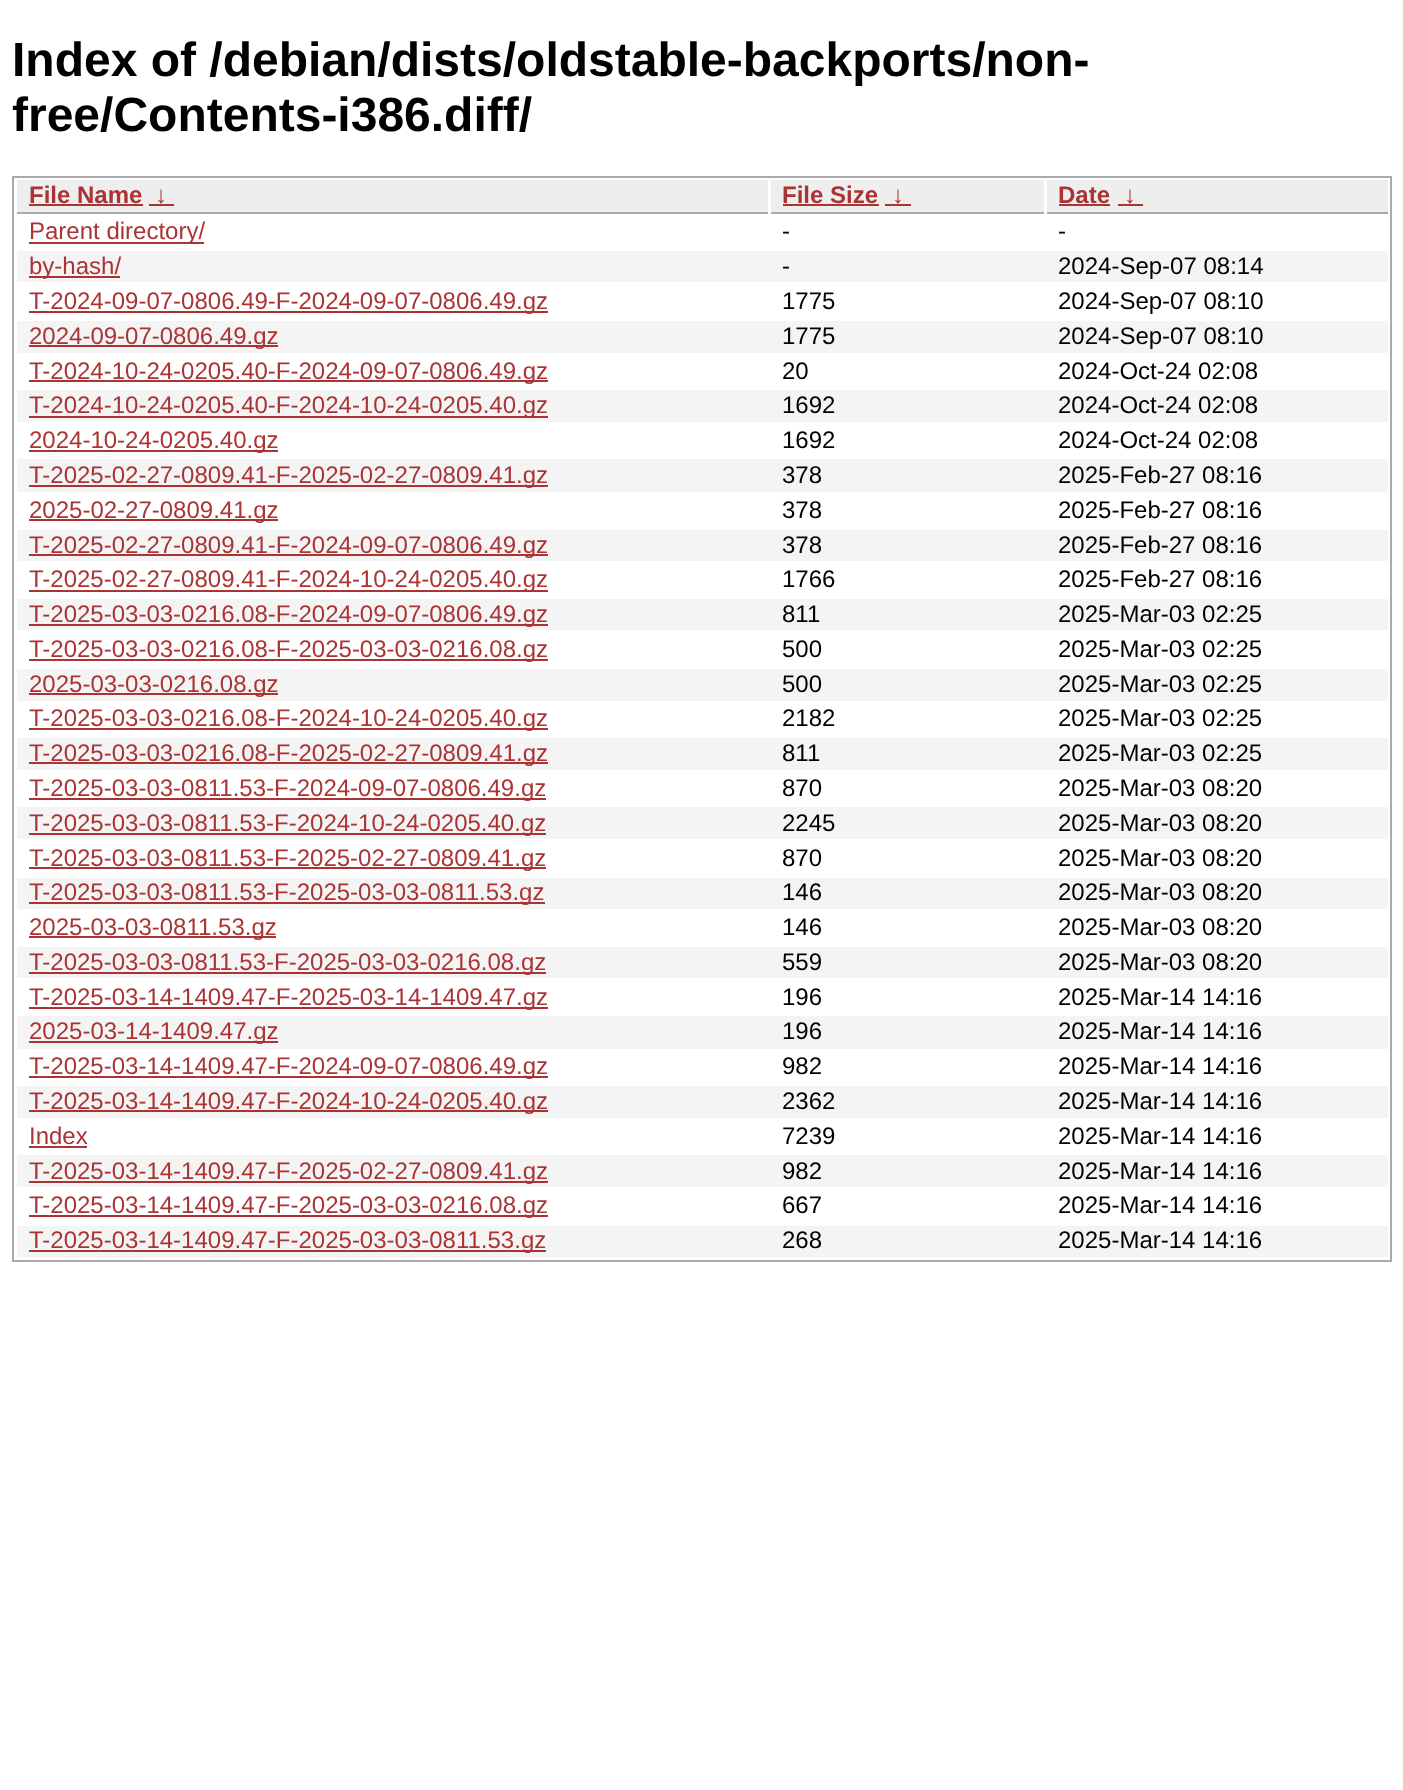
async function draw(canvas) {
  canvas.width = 1403
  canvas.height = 1790
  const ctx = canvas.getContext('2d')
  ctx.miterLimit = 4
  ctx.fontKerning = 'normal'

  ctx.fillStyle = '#fff'
  ctx.fillRect(0, 0, 1403, 1790)
  ctx.font = 'bold 48px Liberation Sans'
  ctx.fillStyle = '#000'
  ctx.fillText('Index of /debian/dists/oldstable-backports/non-', 12, 76)
  ctx.fillText('free/Contents-i386.diff/', 12, 131)
  ctx.strokeStyle = '#aaa'
  ctx.lineWidth = 2
  ctx.strokeRect(13, 177, 1378, 1084)
  ctx.fillStyle = '#eee'
  ctx.fillRect(17, 180, 751, 32)
  ctx.fillStyle = '#aaa'
  ctx.fillRect(17, 212, 751, 2)
  ctx.font = 'bold 24px Liberation Sans'
  ctx.fillStyle = '#a33'
  ctx.fillText('File Name', 29, 203)
  ctx.fillRect(29, 204, 114, 2)
  ctx.fillText('↓', 155, 203)
  ctx.fillRect(149, 204, 25, 2)
  ctx.fillStyle = '#eee'
  ctx.fillRect(771, 180, 273, 32)
  ctx.fillStyle = '#aaa'
  ctx.fillRect(771, 212, 273, 2)
  ctx.fillStyle = '#a33'
  ctx.fillText('File Size', 782, 203)
  ctx.fillRect(783, 204, 96, 2)
  ctx.fillText('↓', 892, 203)
  ctx.fillRect(885, 204, 26, 2)
  ctx.fillStyle = '#eee'
  ctx.fillRect(1047, 180, 341, 32)
  ctx.fillStyle = '#aaa'
  ctx.fillRect(1047, 212, 341, 2)
  ctx.fillStyle = '#a33'
  ctx.fillText('Date', 1058, 203)
  ctx.fillRect(1059, 204, 51, 2)
  ctx.fillText('↓', 1124, 203)
  ctx.fillRect(1118, 204, 25, 2)
  ctx.fillRect(29, 242, 175, 2)
  ctx.font = '24px Liberation Sans'
  ctx.fillText('Parent directory/', 29, 239)
  ctx.fillStyle = '#000'
  ctx.fillText('-', 782, 239)
  ctx.fillText('-', 1058, 239)
  ctx.fillStyle = '#f4f4f4'
  ctx.fillRect(17, 251, 1371, 31)
  ctx.fillStyle = '#a33'
  ctx.fillRect(29, 276, 91, 2)
  ctx.fillText('by-hash/', 29, 274)
  ctx.fillStyle = '#000'
  ctx.fillText('-', 782, 274)
  ctx.fillText('2024-Sep-07 08:14', 1058, 274)
  ctx.fillStyle = '#a33'
  ctx.fillRect(29, 311, 519, 2)
  ctx.fillText('T-2024-09-07-0806.49-F-2024-09-07-0806.49.gz', 29, 309)
  ctx.fillStyle = '#000'
  ctx.fillText('1775', 782, 309)
  ctx.fillText('2024-Sep-07 08:10', 1058, 309)
  ctx.fillStyle = '#f4f4f4'
  ctx.fillRect(17, 321, 1371, 32)
  ctx.fillStyle = '#a33'
  ctx.fillRect(29, 345, 249, 2)
  ctx.fillText('2024-09-07-0806.49.gz', 29, 344)
  ctx.fillStyle = '#000'
  ctx.fillText('1775', 782, 344)
  ctx.fillText('2024-Sep-07 08:10', 1058, 344)
  ctx.fillStyle = '#a33'
  ctx.fillRect(29, 380, 519, 2)
  ctx.fillText('T-2024-10-24-0205.40-F-2024-09-07-0806.49.gz', 29, 379)
  ctx.fillStyle = '#000'
  ctx.fillText('20', 782, 379)
  ctx.fillText('2024-Oct-24 02:08', 1058, 379)
  ctx.fillStyle = '#f4f4f4'
  ctx.fillRect(17, 390, 1371, 32)
  ctx.fillStyle = '#a33'
  ctx.fillRect(29, 416, 519, 2)
  ctx.fillText('T-2024-10-24-0205.40-F-2024-10-24-0205.40.gz', 29, 413)
  ctx.fillStyle = '#000'
  ctx.fillText('1692', 782, 413)
  ctx.fillText('2024-Oct-24 02:08', 1058, 413)
  ctx.fillStyle = '#a33'
  ctx.fillRect(29, 450, 249, 2)
  ctx.fillText('2024-10-24-0205.40.gz', 29, 448)
  ctx.fillStyle = '#000'
  ctx.fillText('1692', 782, 448)
  ctx.fillText('2024-Oct-24 02:08', 1058, 448)
  ctx.fillStyle = '#f4f4f4'
  ctx.fillRect(17, 459, 1371, 33)
  ctx.fillStyle = '#a33'
  ctx.fillRect(29, 485, 519, 2)
  ctx.fillText('T-2025-02-27-0809.41-F-2025-02-27-0809.41.gz', 29, 483)
  ctx.fillStyle = '#000'
  ctx.fillText('378', 782, 483)
  ctx.fillText('2025-Feb-27 08:16', 1058, 483)
  ctx.fillStyle = '#a33'
  ctx.fillRect(29, 519, 249, 2)
  ctx.fillText('2025-02-27-0809.41.gz', 29, 518)
  ctx.fillStyle = '#000'
  ctx.fillText('378', 782, 518)
  ctx.fillText('2025-Feb-27 08:16', 1058, 518)
  ctx.fillStyle = '#f4f4f4'
  ctx.fillRect(17, 530, 1371, 31)
  ctx.fillStyle = '#a33'
  ctx.fillRect(29, 554, 519, 2)
  ctx.fillText('T-2025-02-27-0809.41-F-2024-09-07-0806.49.gz', 29, 553)
  ctx.fillStyle = '#000'
  ctx.fillText('378', 782, 553)
  ctx.fillText('2025-Feb-27 08:16', 1058, 553)
  ctx.fillStyle = '#a33'
  ctx.fillRect(29, 590, 519, 2)
  ctx.fillText('T-2025-02-27-0809.41-F-2024-10-24-0205.40.gz', 29, 587)
  ctx.fillStyle = '#000'
  ctx.fillText('1766', 782, 587)
  ctx.fillText('2025-Feb-27 08:16', 1058, 587)
  ctx.fillStyle = '#f4f4f4'
  ctx.fillRect(17, 599, 1371, 31)
  ctx.fillStyle = '#a33'
  ctx.fillRect(29, 624, 519, 2)
  ctx.fillText('T-2025-03-03-0216.08-F-2024-09-07-0806.49.gz', 29, 622)
  ctx.fillStyle = '#000'
  ctx.fillText('811', 782, 622)
  ctx.fillText('2025-Mar-03 02:25', 1058, 622)
  ctx.fillStyle = '#a33'
  ctx.fillRect(29, 659, 519, 2)
  ctx.fillText('T-2025-03-03-0216.08-F-2025-03-03-0216.08.gz', 29, 657)
  ctx.fillStyle = '#000'
  ctx.fillText('500', 782, 657)
  ctx.fillText('2025-Mar-03 02:25', 1058, 657)
  ctx.fillStyle = '#f4f4f4'
  ctx.fillRect(17, 669, 1371, 32)
  ctx.fillStyle = '#a33'
  ctx.fillRect(29, 693, 249, 2)
  ctx.fillText('2025-03-03-0216.08.gz', 29, 692)
  ctx.fillStyle = '#000'
  ctx.fillText('500', 782, 692)
  ctx.fillText('2025-Mar-03 02:25', 1058, 692)
  ctx.fillStyle = '#a33'
  ctx.fillRect(29, 728, 519, 2)
  ctx.fillText('T-2025-03-03-0216.08-F-2024-10-24-0205.40.gz', 29, 726)
  ctx.fillStyle = '#000'
  ctx.fillText('2182', 782, 726)
  ctx.fillText('2025-Mar-03 02:25', 1058, 726)
  ctx.fillStyle = '#f4f4f4'
  ctx.fillRect(17, 738, 1371, 32)
  ctx.fillStyle = '#a33'
  ctx.fillRect(29, 762, 519, 2)
  ctx.fillText('T-2025-03-03-0216.08-F-2025-02-27-0809.41.gz', 29, 761)
  ctx.fillStyle = '#000'
  ctx.fillText('811', 782, 761)
  ctx.fillText('2025-Mar-03 02:25', 1058, 761)
  ctx.fillStyle = '#a33'
  ctx.fillRect(29, 798, 517, 2)
  ctx.fillText('T-2025-03-03-0811.53-F-2024-09-07-0806.49.gz', 29, 796)
  ctx.fillStyle = '#000'
  ctx.fillText('870', 782, 796)
  ctx.fillText('2025-Mar-03 08:20', 1058, 796)
  ctx.fillStyle = '#f4f4f4'
  ctx.fillRect(17, 807, 1371, 32)
  ctx.fillStyle = '#a33'
  ctx.fillRect(29, 833, 517, 2)
  ctx.fillText('T-2025-03-03-0811.53-F-2024-10-24-0205.40.gz', 29, 831)
  ctx.fillStyle = '#000'
  ctx.fillText('2245', 782, 831)
  ctx.fillText('2025-Mar-03 08:20', 1058, 831)
  ctx.fillStyle = '#a33'
  ctx.fillRect(29, 867, 517, 2)
  ctx.fillText('T-2025-03-03-0811.53-F-2025-02-27-0809.41.gz', 29, 866)
  ctx.fillStyle = '#000'
  ctx.fillText('870', 782, 866)
  ctx.fillText('2025-Mar-03 08:20', 1058, 866)
  ctx.fillStyle = '#f4f4f4'
  ctx.fillRect(17, 878, 1371, 31)
  ctx.fillStyle = '#a33'
  ctx.fillRect(29, 902, 516, 2)
  ctx.fillText('T-2025-03-03-0811.53-F-2025-03-03-0811.53.gz', 29, 900)
  ctx.fillStyle = '#000'
  ctx.fillText('146', 782, 900)
  ctx.fillText('2025-Mar-03 08:20', 1058, 900)
  ctx.fillStyle = '#a33'
  ctx.fillRect(29, 936, 247, 2)
  ctx.fillText('2025-03-03-0811.53.gz', 29, 935)
  ctx.fillStyle = '#000'
  ctx.fillText('146', 782, 935)
  ctx.fillText('2025-Mar-03 08:20', 1058, 935)
  ctx.fillStyle = '#f4f4f4'
  ctx.fillRect(17, 947, 1371, 31)
  ctx.fillStyle = '#a33'
  ctx.fillRect(29, 972, 517, 2)
  ctx.fillText('T-2025-03-03-0811.53-F-2025-03-03-0216.08.gz', 29, 970)
  ctx.fillStyle = '#000'
  ctx.fillText('559', 782, 970)
  ctx.fillText('2025-Mar-03 08:20', 1058, 970)
  ctx.fillStyle = '#a33'
  ctx.fillRect(29, 1007, 519, 2)
  ctx.fillText('T-2025-03-14-1409.47-F-2025-03-14-1409.47.gz', 29, 1005)
  ctx.fillStyle = '#000'
  ctx.fillText('196', 782, 1005)
  ctx.fillText('2025-Mar-14 14:16', 1058, 1005)
  ctx.fillStyle = '#f4f4f4'
  ctx.fillRect(17, 1016, 1371, 33)
  ctx.fillStyle = '#a33'
  ctx.fillRect(29, 1041, 249, 2)
  ctx.fillText('2025-03-14-1409.47.gz', 29, 1039)
  ctx.fillStyle = '#000'
  ctx.fillText('196', 782, 1039)
  ctx.fillText('2025-Mar-14 14:16', 1058, 1039)
  ctx.fillStyle = '#a33'
  ctx.fillRect(29, 1076, 519, 2)
  ctx.fillText('T-2025-03-14-1409.47-F-2024-09-07-0806.49.gz', 29, 1074)
  ctx.fillStyle = '#000'
  ctx.fillText('982', 782, 1074)
  ctx.fillText('2025-Mar-14 14:16', 1058, 1074)
  ctx.fillStyle = '#f4f4f4'
  ctx.fillRect(17, 1086, 1371, 32)
  ctx.fillStyle = '#a33'
  ctx.fillRect(29, 1110, 519, 2)
  ctx.fillText('T-2025-03-14-1409.47-F-2024-10-24-0205.40.gz', 29, 1109)
  ctx.fillStyle = '#000'
  ctx.fillText('2362', 782, 1109)
  ctx.fillText('2025-Mar-14 14:16', 1058, 1109)
  ctx.fillStyle = '#a33'
  ctx.fillText('Index', 29, 1144)
  ctx.fillRect(29, 1146, 58, 2)
  ctx.fillStyle = '#000'
  ctx.fillText('7239', 782, 1144)
  ctx.fillText('2025-Mar-14 14:16', 1058, 1144)
  ctx.fillStyle = '#f4f4f4'
  ctx.fillRect(17, 1155, 1371, 32)
  ctx.fillStyle = '#a33'
  ctx.fillRect(29, 1181, 519, 2)
  ctx.fillText('T-2025-03-14-1409.47-F-2025-02-27-0809.41.gz', 29, 1179)
  ctx.fillStyle = '#000'
  ctx.fillText('982', 782, 1179)
  ctx.fillText('2025-Mar-14 14:16', 1058, 1179)
  ctx.fillStyle = '#a33'
  ctx.fillRect(29, 1215, 519, 2)
  ctx.fillText('T-2025-03-14-1409.47-F-2025-03-03-0216.08.gz', 29, 1213)
  ctx.fillStyle = '#000'
  ctx.fillText('667', 782, 1213)
  ctx.fillText('2025-Mar-14 14:16', 1058, 1213)
  ctx.fillStyle = '#f4f4f4'
  ctx.fillRect(17, 1226, 1371, 31)
  ctx.fillStyle = '#a33'
  ctx.fillRect(29, 1250, 517, 2)
  ctx.fillText('T-2025-03-14-1409.47-F-2025-03-03-0811.53.gz', 29, 1248)
  ctx.fillStyle = '#000'
  ctx.fillText('268', 782, 1248)
  ctx.fillText('2025-Mar-14 14:16', 1058, 1248)
}

draw(document.querySelector('canvas'))
